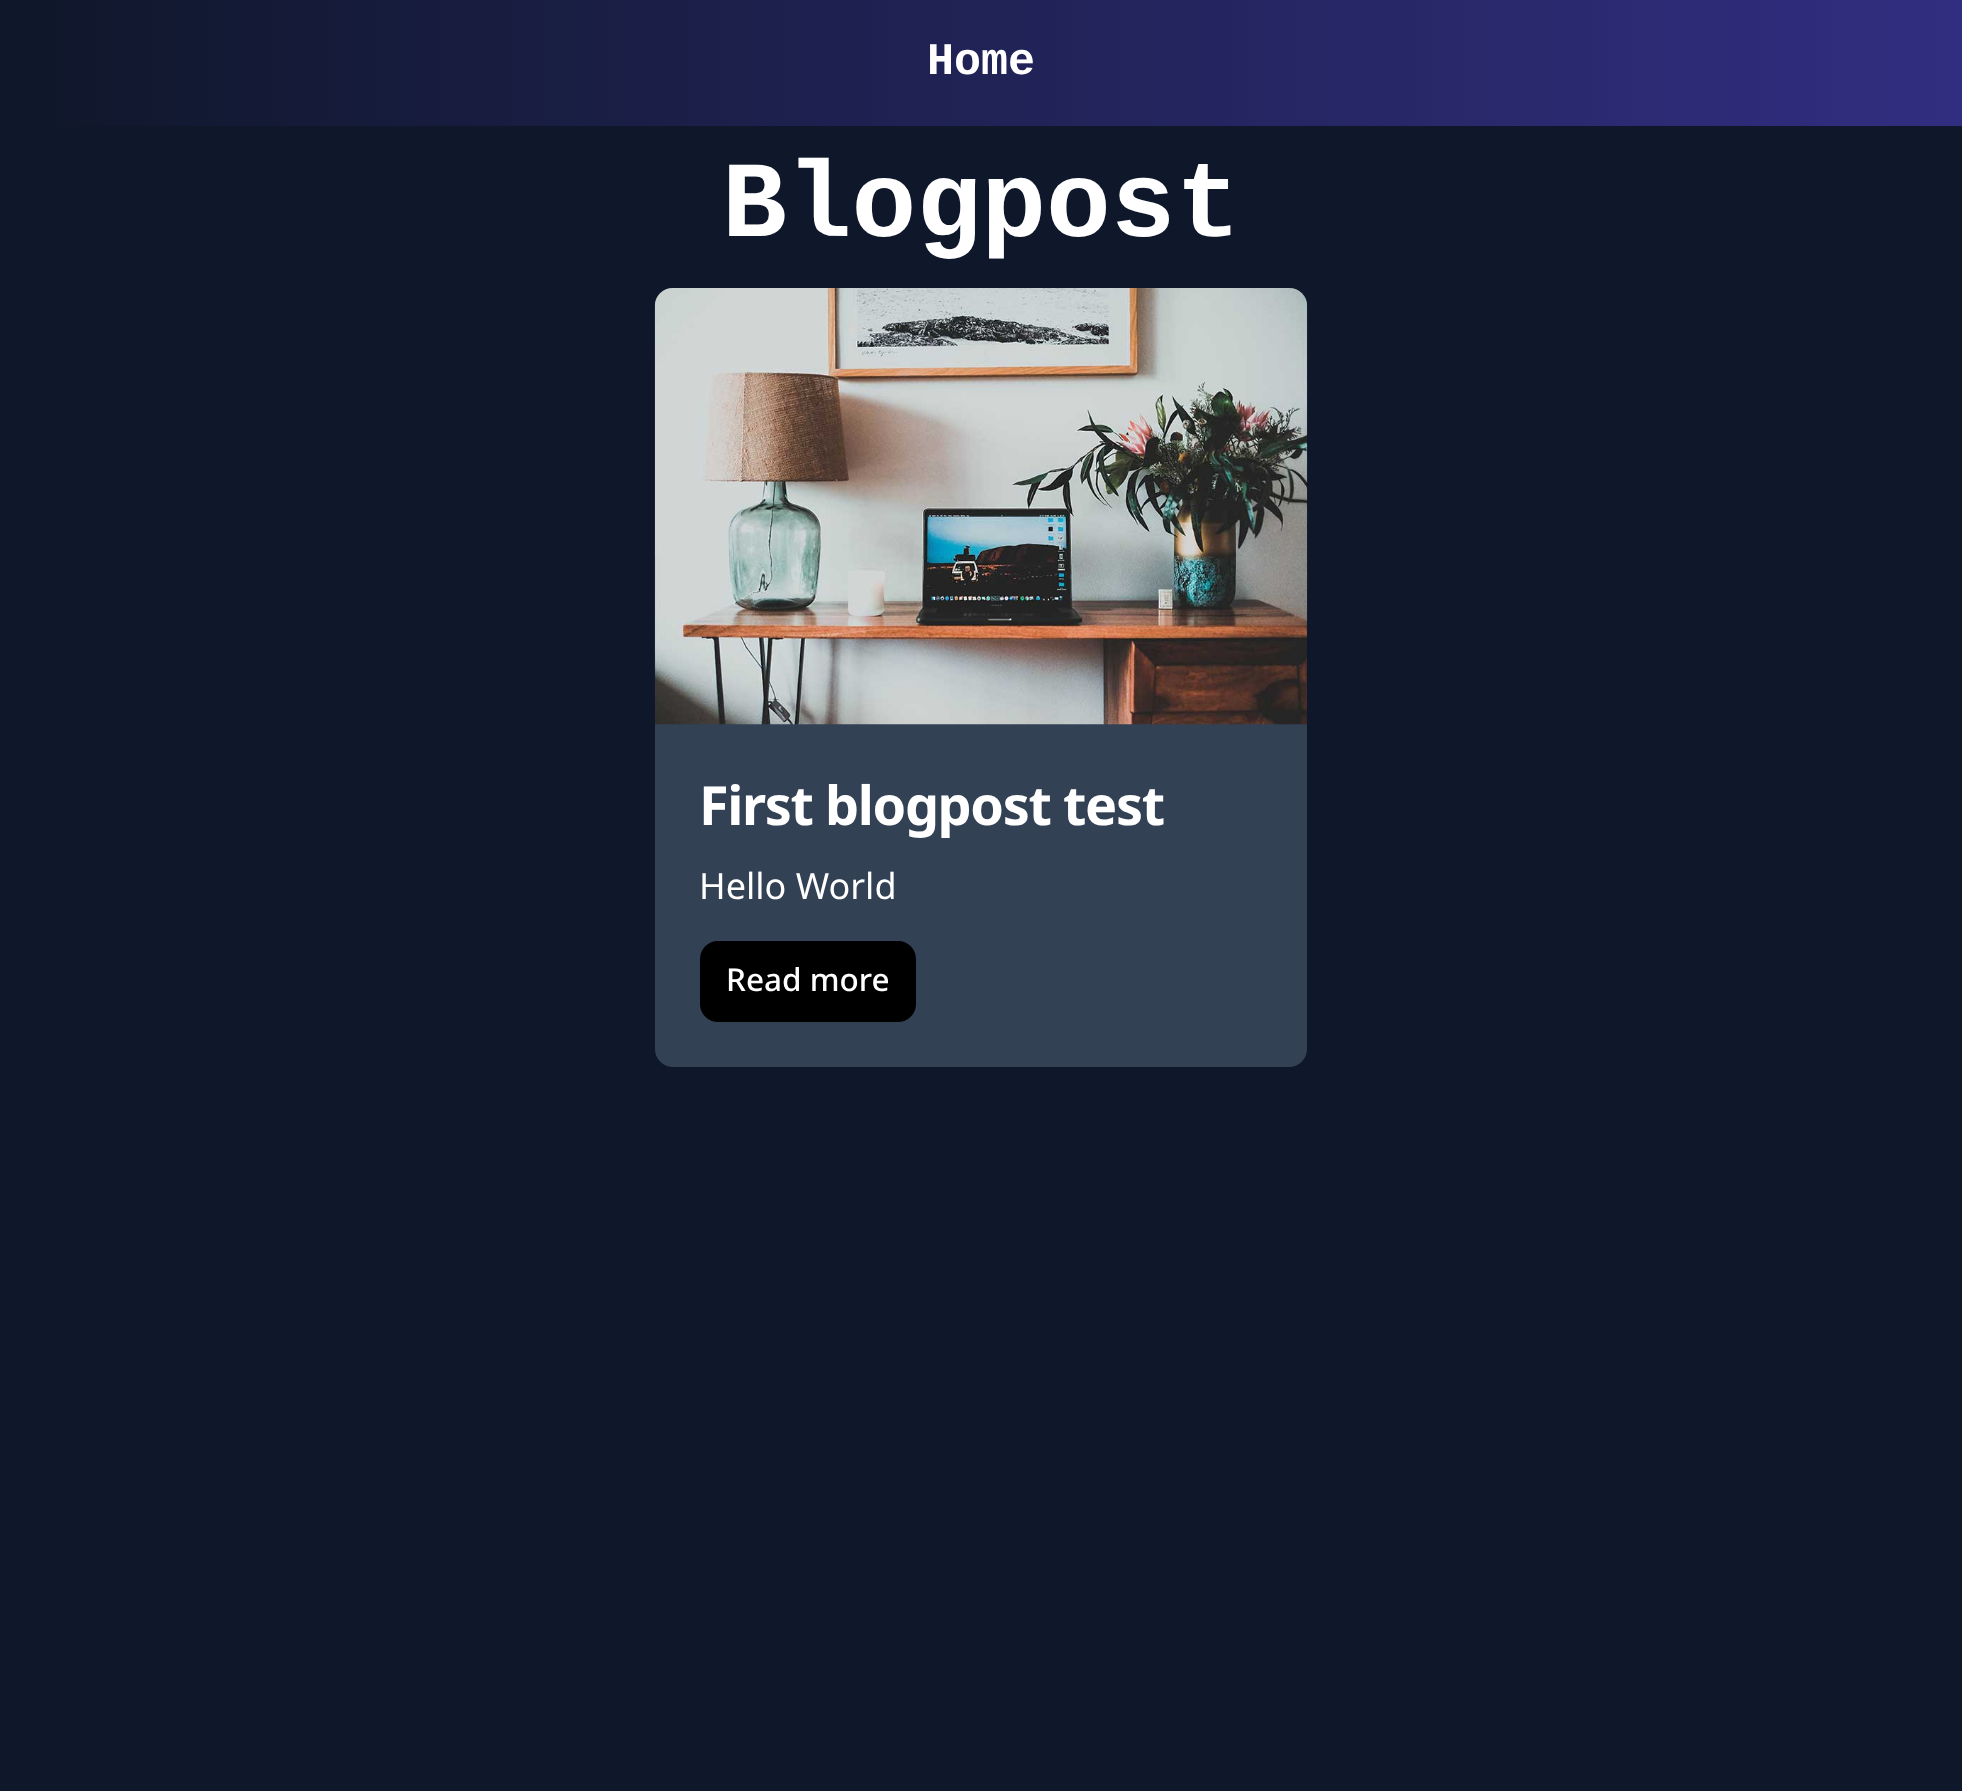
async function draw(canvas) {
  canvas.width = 1962
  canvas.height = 1791
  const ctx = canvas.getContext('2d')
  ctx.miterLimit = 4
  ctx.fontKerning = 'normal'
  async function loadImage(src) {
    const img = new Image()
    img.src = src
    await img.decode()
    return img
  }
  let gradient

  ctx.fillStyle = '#0f172a'
  ctx.fillRect(0, 0, 1962, 1791)
  gradient = ctx.createLinearGradient(0, 63, 1962, 63)
  gradient.addColorStop(0, '#0f172a')
  gradient.addColorStop(1, '#312e81')
  ctx.fillStyle = gradient
  ctx.fillRect(56, 0, 1906, 126)
  ctx.font = 'bold 45px Liberation Mono'
  ctx.fillStyle = '#fff'
  ctx.fillText('Home', 927, 74)
  ctx.font = 'bold 108px Liberation Mono'
  ctx.fillText('Blogpost', 722, 236)
  ctx.fillStyle = '#334155'
  ctx.beginPath()
  ctx.roundRect(655, 288, 652, 779, 18)
  ctx.fill()
  ctx.drawImage(await loadImage('image0.png'), 654, 288, 654, 437)
  ctx.letterSpacing = '-1.4px'
  ctx.font = 'bold 54px Noto Sans'
  ctx.fillStyle = '#fff'
  ctx.fillText('First blogpost test', 699, 825)
  ctx.letterSpacing = '0px'
  ctx.font = '36px Noto Sans'
  ctx.fillText('Hello World', 699, 899)
  ctx.fillStyle = '#000'
  ctx.beginPath()
  ctx.roundRect(700, 941, 216, 81, 18)
  ctx.fill()
  ctx.font = '500 31.5px Noto Sans'
  ctx.fillStyle = '#fff'
  ctx.fillText('Read more', 726, 991)
}

draw(document.querySelector('canvas'))
